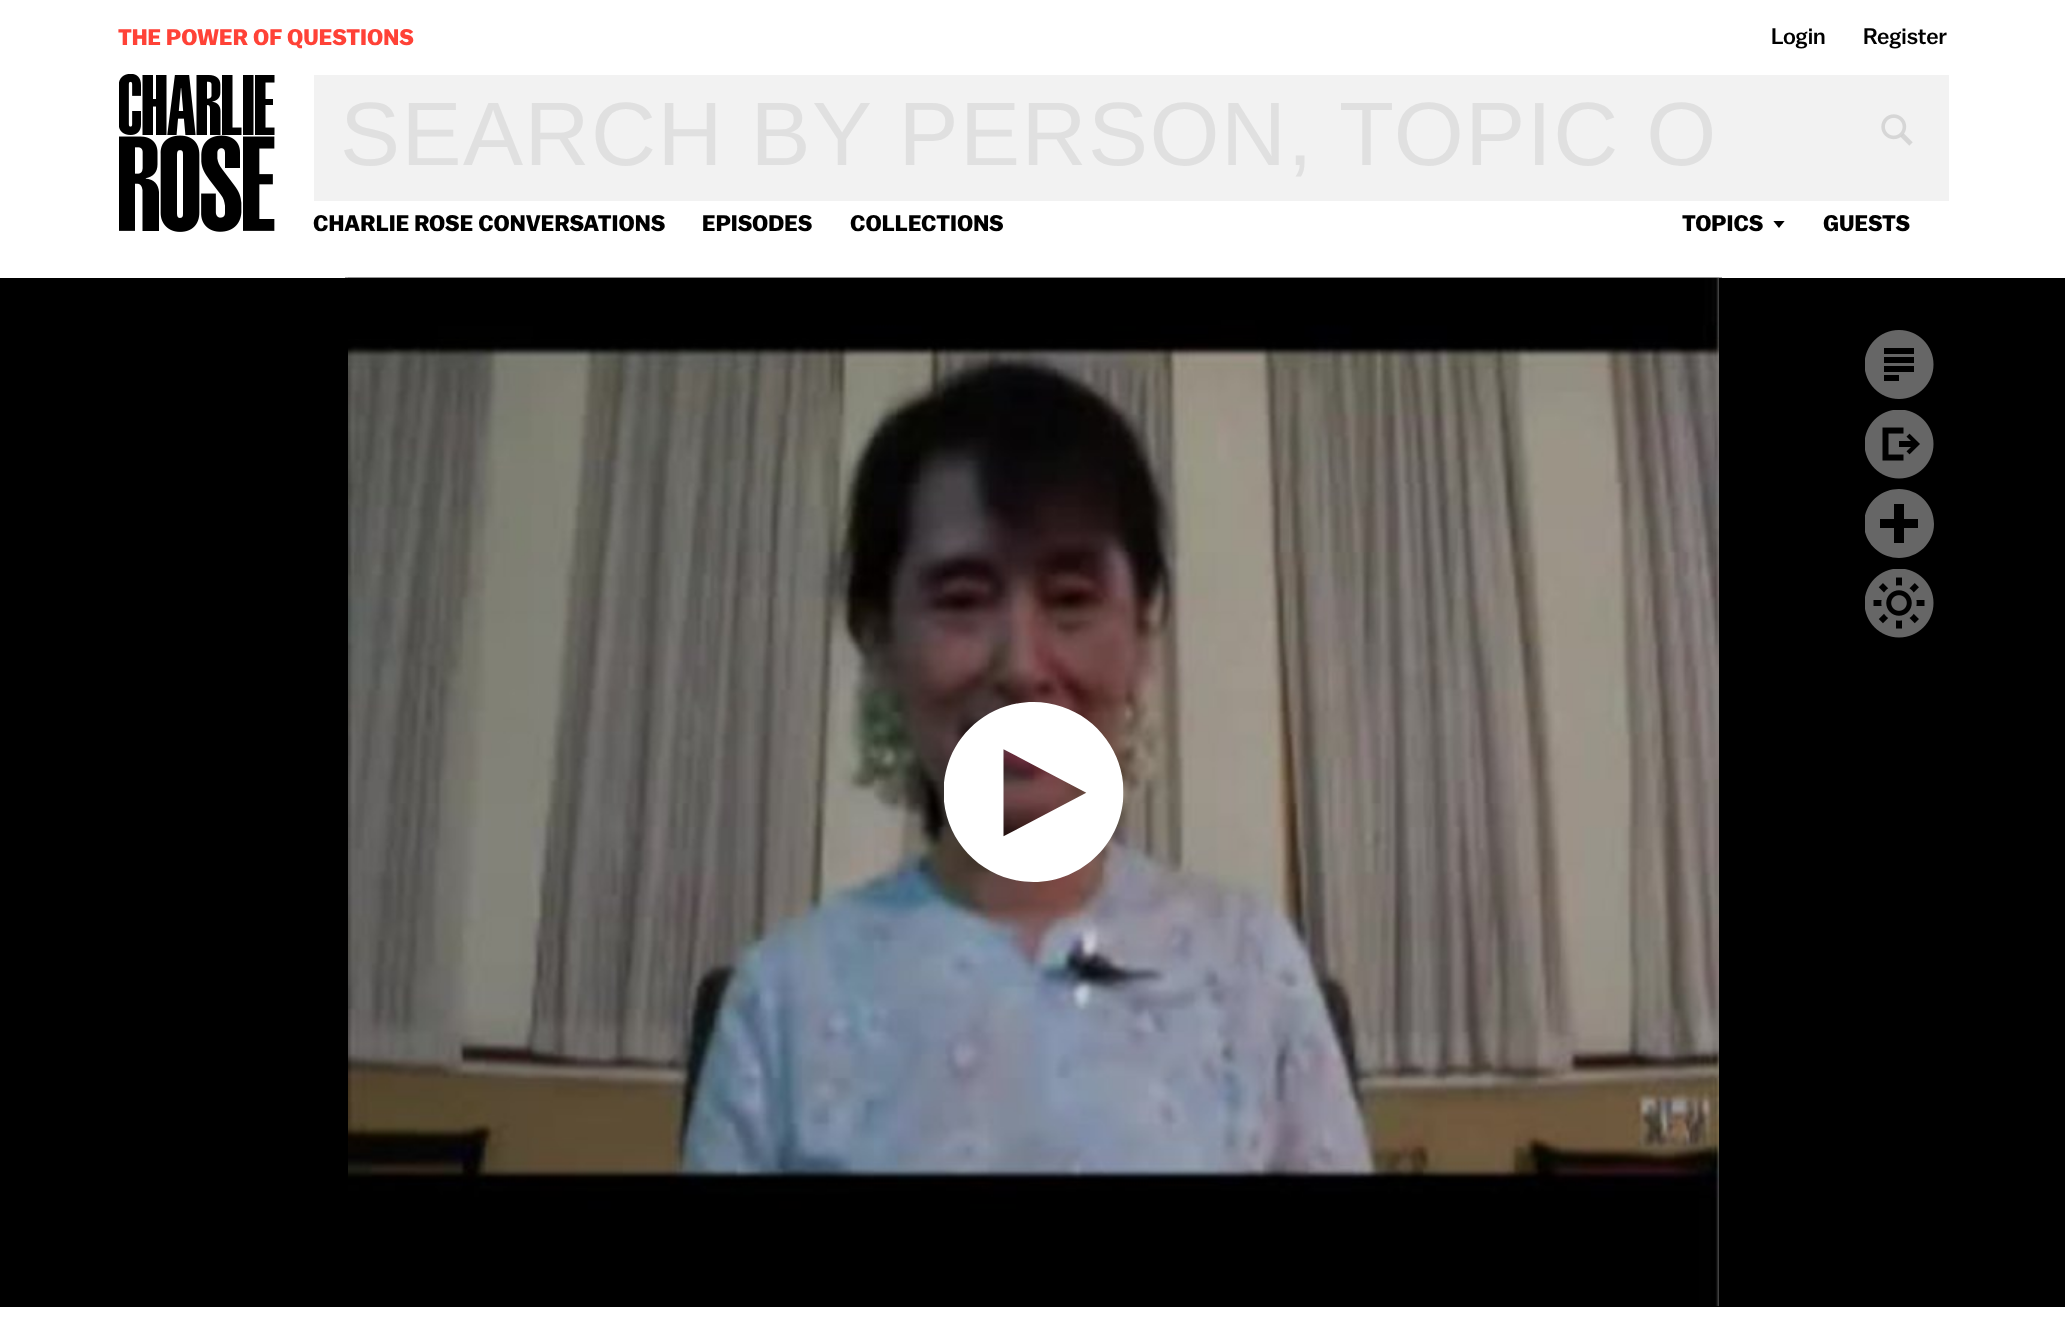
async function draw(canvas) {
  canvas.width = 2065
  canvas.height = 1329
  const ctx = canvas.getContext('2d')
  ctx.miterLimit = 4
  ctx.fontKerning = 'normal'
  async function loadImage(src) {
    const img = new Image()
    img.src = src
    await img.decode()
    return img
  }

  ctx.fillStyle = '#fff'
  ctx.fillRect(0, 0, 2065, 1329)
  ctx.font = '600 22.5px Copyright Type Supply'
  ctx.fillStyle = '#ff4237'
  ctx.fillText('THE POWER OF QUESTIONS', 118, 45)
  ctx.font = '500 22.5px Copyright Type Supply'
  ctx.fillStyle = '#000'
  ctx.fillText('Login', 1771, 44)
  ctx.fillText('Register', 1863, 44)
  ctx.font = '600 22.5px Copyright Type Supply'
  ctx.fillText('CHARLIE ROSE CONVERSATIONS', 313, 231)
  ctx.fillText('EPISODES', 702, 231)
  ctx.fillText('COLLECTIONS', 850, 231)
  ctx.fillText('TOPICS', 1682, 231)
  ctx.save()
  ctx.beginPath()
  ctx.rect(1773, 221, 12, 7)
  ctx.clip()
  ctx.beginPath()
  ctx.moveTo(1773, 220.5)
  ctx.lineTo(1785, 220.5)
  ctx.lineTo(1779, 228)
  ctx.closePath()
  ctx.fill()
  ctx.restore()
  ctx.fillText('GUESTS', 1823, 231)
  ctx.drawImage(await loadImage('image0.png'), 119, 74, 156, 158)
  ctx.fillStyle = '#f2f2f2'
  ctx.fillRect(314, 75, 1635, 126)
  ctx.letterSpacing = '1.5px'
  ctx.font = '90px Liberation Sans'
  ctx.fillStyle = '#e0e0e0'
  ctx.fillText('SEARCH BY PERSON, TOPIC O', 340, 165)
  ctx.drawImage(await loadImage('image1.png'), 1881, 114, 32, 32)
  ctx.fillStyle = '#000'
  ctx.fillRect(0, 278, 2065, 1029)
  ctx.drawImage(await loadImage('image2.png'), 345, 277, 1377, 1030)
  ctx.drawImage(await loadImage('image3.png'), 1865, 330, 69, 69)
  ctx.drawImage(await loadImage('image4.png'), 1865, 410, 69, 69)
  ctx.save()
  ctx.beginPath()
  ctx.rect(1865, 489, 69, 69)
  ctx.clip()
  ctx.fillStyle = '#666'
  ctx.beginPath()
  ctx.moveTo(1899, 489)
  ctx.bezierCurveTo(1880, 489, 1864, 504, 1864, 524)
  ctx.bezierCurveTo(1864, 543, 1880, 558, 1899, 558)
  ctx.bezierCurveTo(1918, 558, 1934, 543, 1934, 524)
  ctx.bezierCurveTo(1934, 504, 1918, 489, 1899, 489)
  ctx.closePath()
  ctx.moveTo(1918, 528)
  ctx.lineTo(1904, 528)
  ctx.lineTo(1904, 543)
  ctx.lineTo(1894, 543)
  ctx.lineTo(1894, 528)
  ctx.lineTo(1880, 528)
  ctx.lineTo(1880, 519)
  ctx.lineTo(1894, 519)
  ctx.lineTo(1894, 504)
  ctx.lineTo(1904, 504)
  ctx.lineTo(1904, 519)
  ctx.lineTo(1918, 519)
  ctx.closePath()
  ctx.fill()
  ctx.restore()
  ctx.drawImage(await loadImage('image5.png'), 1865, 569, 69, 69)
}

draw(document.querySelector('canvas'))
